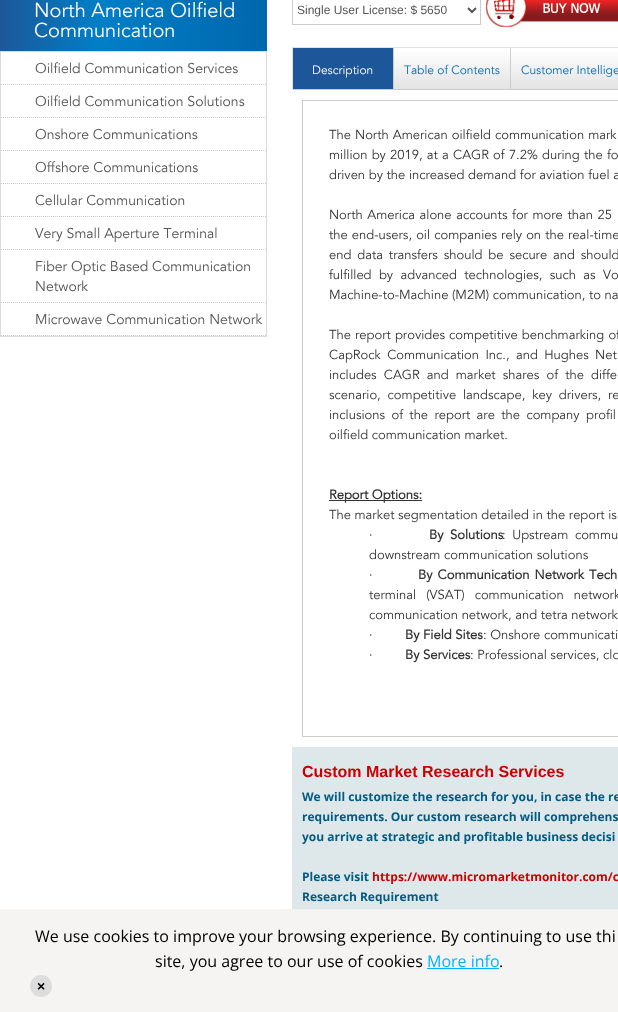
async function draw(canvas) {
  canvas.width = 618
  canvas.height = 1012
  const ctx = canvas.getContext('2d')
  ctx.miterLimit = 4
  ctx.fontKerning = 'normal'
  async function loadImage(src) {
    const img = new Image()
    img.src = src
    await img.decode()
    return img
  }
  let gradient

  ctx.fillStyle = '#fff'
  ctx.fillRect(0, 0, 618, 1012)
  gradient = ctx.createLinearGradient(0, 19, 267, 18)
  gradient.addColorStop(0, '#1e5799')
  gradient.addColorStop(0.37, '#007fc7')
  gradient.addColorStop(1, '#0067ac')
  ctx.fillStyle = gradient
  ctx.fillRect(0, 0, 267, 51)
  ctx.font = '20px Avenir'
  ctx.fillStyle = '#fff'
  ctx.fillText('North America Oilfield', 34, 17)
  ctx.fillText('Communication', 34, 37)
  ctx.strokeStyle = '#dbdbdb'
  ctx.strokeRect(0.5, 51.5, 266, 285)
  ctx.beginPath()
  ctx.moveTo(1, 84.5)
  ctx.lineTo(266, 84.5)
  ctx.strokeStyle = '#ccc'
  ctx.setLineDash([1, 1])
  ctx.stroke()
  ctx.font = '14px Avenir'
  ctx.fillStyle = '#555'
  ctx.fillText('Oilfield Communication Services', 35, 73)
  ctx.beginPath()
  ctx.moveTo(1, 117.5)
  ctx.lineTo(266, 117.5)
  ctx.stroke()
  ctx.fillText('Oilfield Communication Solutions', 35, 106)
  ctx.beginPath()
  ctx.moveTo(1, 150.5)
  ctx.lineTo(266, 150.5)
  ctx.stroke()
  ctx.fillText('Onshore Communications', 35, 139)
  ctx.beginPath()
  ctx.moveTo(1, 183.5)
  ctx.lineTo(266, 183.5)
  ctx.stroke()
  ctx.fillText('Offshore Communications', 35, 172)
  ctx.beginPath()
  ctx.moveTo(1, 216.5)
  ctx.lineTo(266, 216.5)
  ctx.stroke()
  ctx.fillText('Cellular Communication', 35, 205)
  ctx.beginPath()
  ctx.moveTo(1, 249.5)
  ctx.lineTo(266, 249.5)
  ctx.stroke()
  ctx.fillText('Very Small Aperture Terminal', 35, 238)
  ctx.beginPath()
  ctx.moveTo(1, 302.5)
  ctx.lineTo(266, 302.5)
  ctx.stroke()
  ctx.fillText('Fiber Optic Based Communication', 35, 271)
  ctx.fillText('Network', 35, 291)
  ctx.beginPath()
  ctx.moveTo(1, 335.5)
  ctx.lineTo(266, 335.5)
  ctx.stroke()
  ctx.fillText('Microwave Communication Network', 35, 324)
  ctx.setLineDash([])
  ctx.strokeRect(292.5, -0.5, 188, 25)
  ctx.beginPath()
  ctx.moveTo(468, 8)
  ctx.lineTo(472, 12)
  ctx.lineTo(476, 8)
  ctx.strokeStyle = '#555'
  ctx.lineWidth = 2
  ctx.stroke()
  ctx.font = '12px Liberation Sans'
  ctx.fillText('Single User License: $ 5650', 297, 14)
  ctx.drawImage(await loadImage('image0.png'), 486, 0, 132, 27)
  gradient = ctx.createLinearGradient(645, 48, 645, 90)
  gradient.addColorStop(0, '#fff')
  gradient.addColorStop(0.99, '#e3e3e3')
  ctx.fillStyle = gradient
  ctx.fillRect(394, 52, 224, 37)
  ctx.fillStyle = '#e1e1e1'
  ctx.fillRect(292, 47, 326, 1)
  ctx.fillRect(292, 47, 1, 43)
  ctx.fillStyle = '#1e5799'
  ctx.fillRect(293, 48, 100, 41)
  ctx.fillStyle = '#ccc'
  ctx.fillRect(393, 48, 1, 42)
  ctx.fillRect(293, 89, 101, 1)
  ctx.font = '12px Avenir'
  ctx.fillStyle = '#fff'
  ctx.fillText('Description', 312, 74)
  ctx.fillStyle = '#ccc'
  ctx.fillRect(510, 48, 1, 42)
  ctx.fillRect(394, 89, 224, 1)
  ctx.fillStyle = '#006aae'
  ctx.fillText('Table of Contents', 404, 74)
  ctx.fillText('Customer Intellige', 521, 74)
  ctx.strokeStyle = '#ccc'
  ctx.lineWidth = 1
  ctx.strokeRect(302.5, 100.5, 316, 636)
  ctx.wordSpacing = '0.5px'
  ctx.font = '13px Avenir'
  ctx.fillStyle = '#333'
  ctx.fillText('The North American oilfield communication mark', 329, 139)
  ctx.wordSpacing = '0.6px'
  ctx.fillText('million by 2019, at a CAGR of 7.2% during the fo', 329, 159)
  ctx.wordSpacing = '0px'
  ctx.fillText('driven by the increased demand for aviation fuel a', 329, 179)
  ctx.wordSpacing = '1px'
  ctx.fillText('North America alone accounts for more than 25', 329, 219)
  ctx.wordSpacing = '0.5px'
  ctx.fillText('the end-users, oil companies rely on the real-time', 329, 239)
  ctx.wordSpacing = '2.25px'
  ctx.fillText('end data transfers should be secure and should', 329, 259)
  ctx.wordSpacing = '3.75px'
  ctx.fillText('fulfilled by advanced technologies, such as Vo', 329, 279)
  ctx.wordSpacing = '0px'
  ctx.fillText('Machine-to-Machine (M2M) communication, to na', 329, 299)
  ctx.wordSpacing = '0.5px'
  ctx.fillText('The report provides competitive benchmarking of', 329, 339)
  ctx.wordSpacing = '2.75px'
  ctx.fillText('CapRock Communication Inc., and Hughes Net', 329, 359)
  ctx.wordSpacing = '3.5px'
  ctx.fillText('includes CAGR and market shares of the differ', 329, 379)
  ctx.wordSpacing = '3.25px'
  ctx.fillText('scenario, competitive landscape, key drivers, re', 329, 399)
  ctx.wordSpacing = '2.75px'
  ctx.fillText('inclusions of the report are the company profil', 329, 419)
  ctx.wordSpacing = '0px'
  ctx.fillText('oilfield communication market.', 329, 439)
  ctx.fillRect(329, 500, 93, 1)
  ctx.font = 'bold 13px Avenir'
  ctx.fillText('Report Options:', 329, 499)
  ctx.font = '13px Avenir'
  ctx.fillText('The market segmentation detailed in the report is', 329, 519)
  ctx.fillText('·', 369, 539)
  ctx.wordSpacing = '3px'
  ctx.font = 'bold 13px Avenir'
  ctx.fillText('By Solutions', 429, 539)
  ctx.font = '13px Avenir'
  ctx.fillText(': Upstream commu', 502, 539)
  ctx.wordSpacing = '0px'
  ctx.fillText('downstream communication solutions', 369, 559)
  ctx.fillText('·', 369, 579)
  ctx.wordSpacing = '1.5px'
  ctx.font = 'bold 13px Avenir'
  ctx.fillText('By Communication Network Tech', 418, 579)
  ctx.wordSpacing = '6.5px'
  ctx.font = '13px Avenir'
  ctx.fillText('terminal (VSAT) communication network', 369, 599)
  ctx.wordSpacing = '0px'
  ctx.fillText('communication network, and tetra network', 369, 619)
  ctx.fillText('·', 369, 639)
  ctx.font = 'bold 13px Avenir'
  ctx.fillText('By Field Sites', 405, 639)
  ctx.font = '13px Avenir'
  ctx.fillText(': Onshore communicati', 483, 639)
  ctx.fillText('·', 369, 659)
  ctx.font = 'bold 13px Avenir'
  ctx.fillText('By Services', 405, 659)
  ctx.font = '13px Avenir'
  ctx.fillText(': Professional services, clo', 470, 659)
  ctx.fillStyle = '#dee8ea'
  ctx.fillRect(292, 747, 326, 162)
  ctx.font = 'bold 16px Liberation Sans'
  ctx.fillStyle = '#c00'
  ctx.fillText('Custom Market Research Services', 302, 777)
  ctx.font = 'bold 12px Open Sans'
  ctx.fillStyle = '#025b83'
  ctx.fillText('We will customize the research for you, in case the re', 302, 801)
  ctx.fillText('requirements. Our custom research will comprehens', 302, 821)
  ctx.fillText('you arrive at strategic and profitable business decisi', 302, 841)
  ctx.fillText('Please visit', 302, 881)
  ctx.fillStyle = '#c00'
  ctx.fillText('https://www.micromarketmonitor.com/c', 372, 881)
  ctx.fillStyle = '#025b83'
  ctx.fillText('Research Requirement', 302, 901)
  ctx.fillStyle = '#f6f3f3'
  ctx.fillRect(0, 909, 618, 103)
  ctx.font = '16px Open Sans'
  ctx.fillStyle = '#000'
  ctx.fillText('We use cookies to improve your browsing experience. By continuing to use thi', 35, 942)
  ctx.fillText('site, you agree to our use of cookies', 155, 967)
  ctx.fillStyle = '#00b4ff'
  ctx.fillText('More info', 427, 967)
  ctx.fillRect(427, 968, 72, 1)
  ctx.fillStyle = '#000'
  ctx.fillText('.', 499, 967)
  ctx.fillStyle = '#ddd'
  ctx.beginPath()
  ctx.arc(41, 986, 11, 0, 2 * Math.PI)
  ctx.fill()
  ctx.font = 'bold 14px Liberation Sans'
  ctx.fillStyle = '#000'
  ctx.fillText('×', 37, 991)
}

draw(document.querySelector('canvas'))
